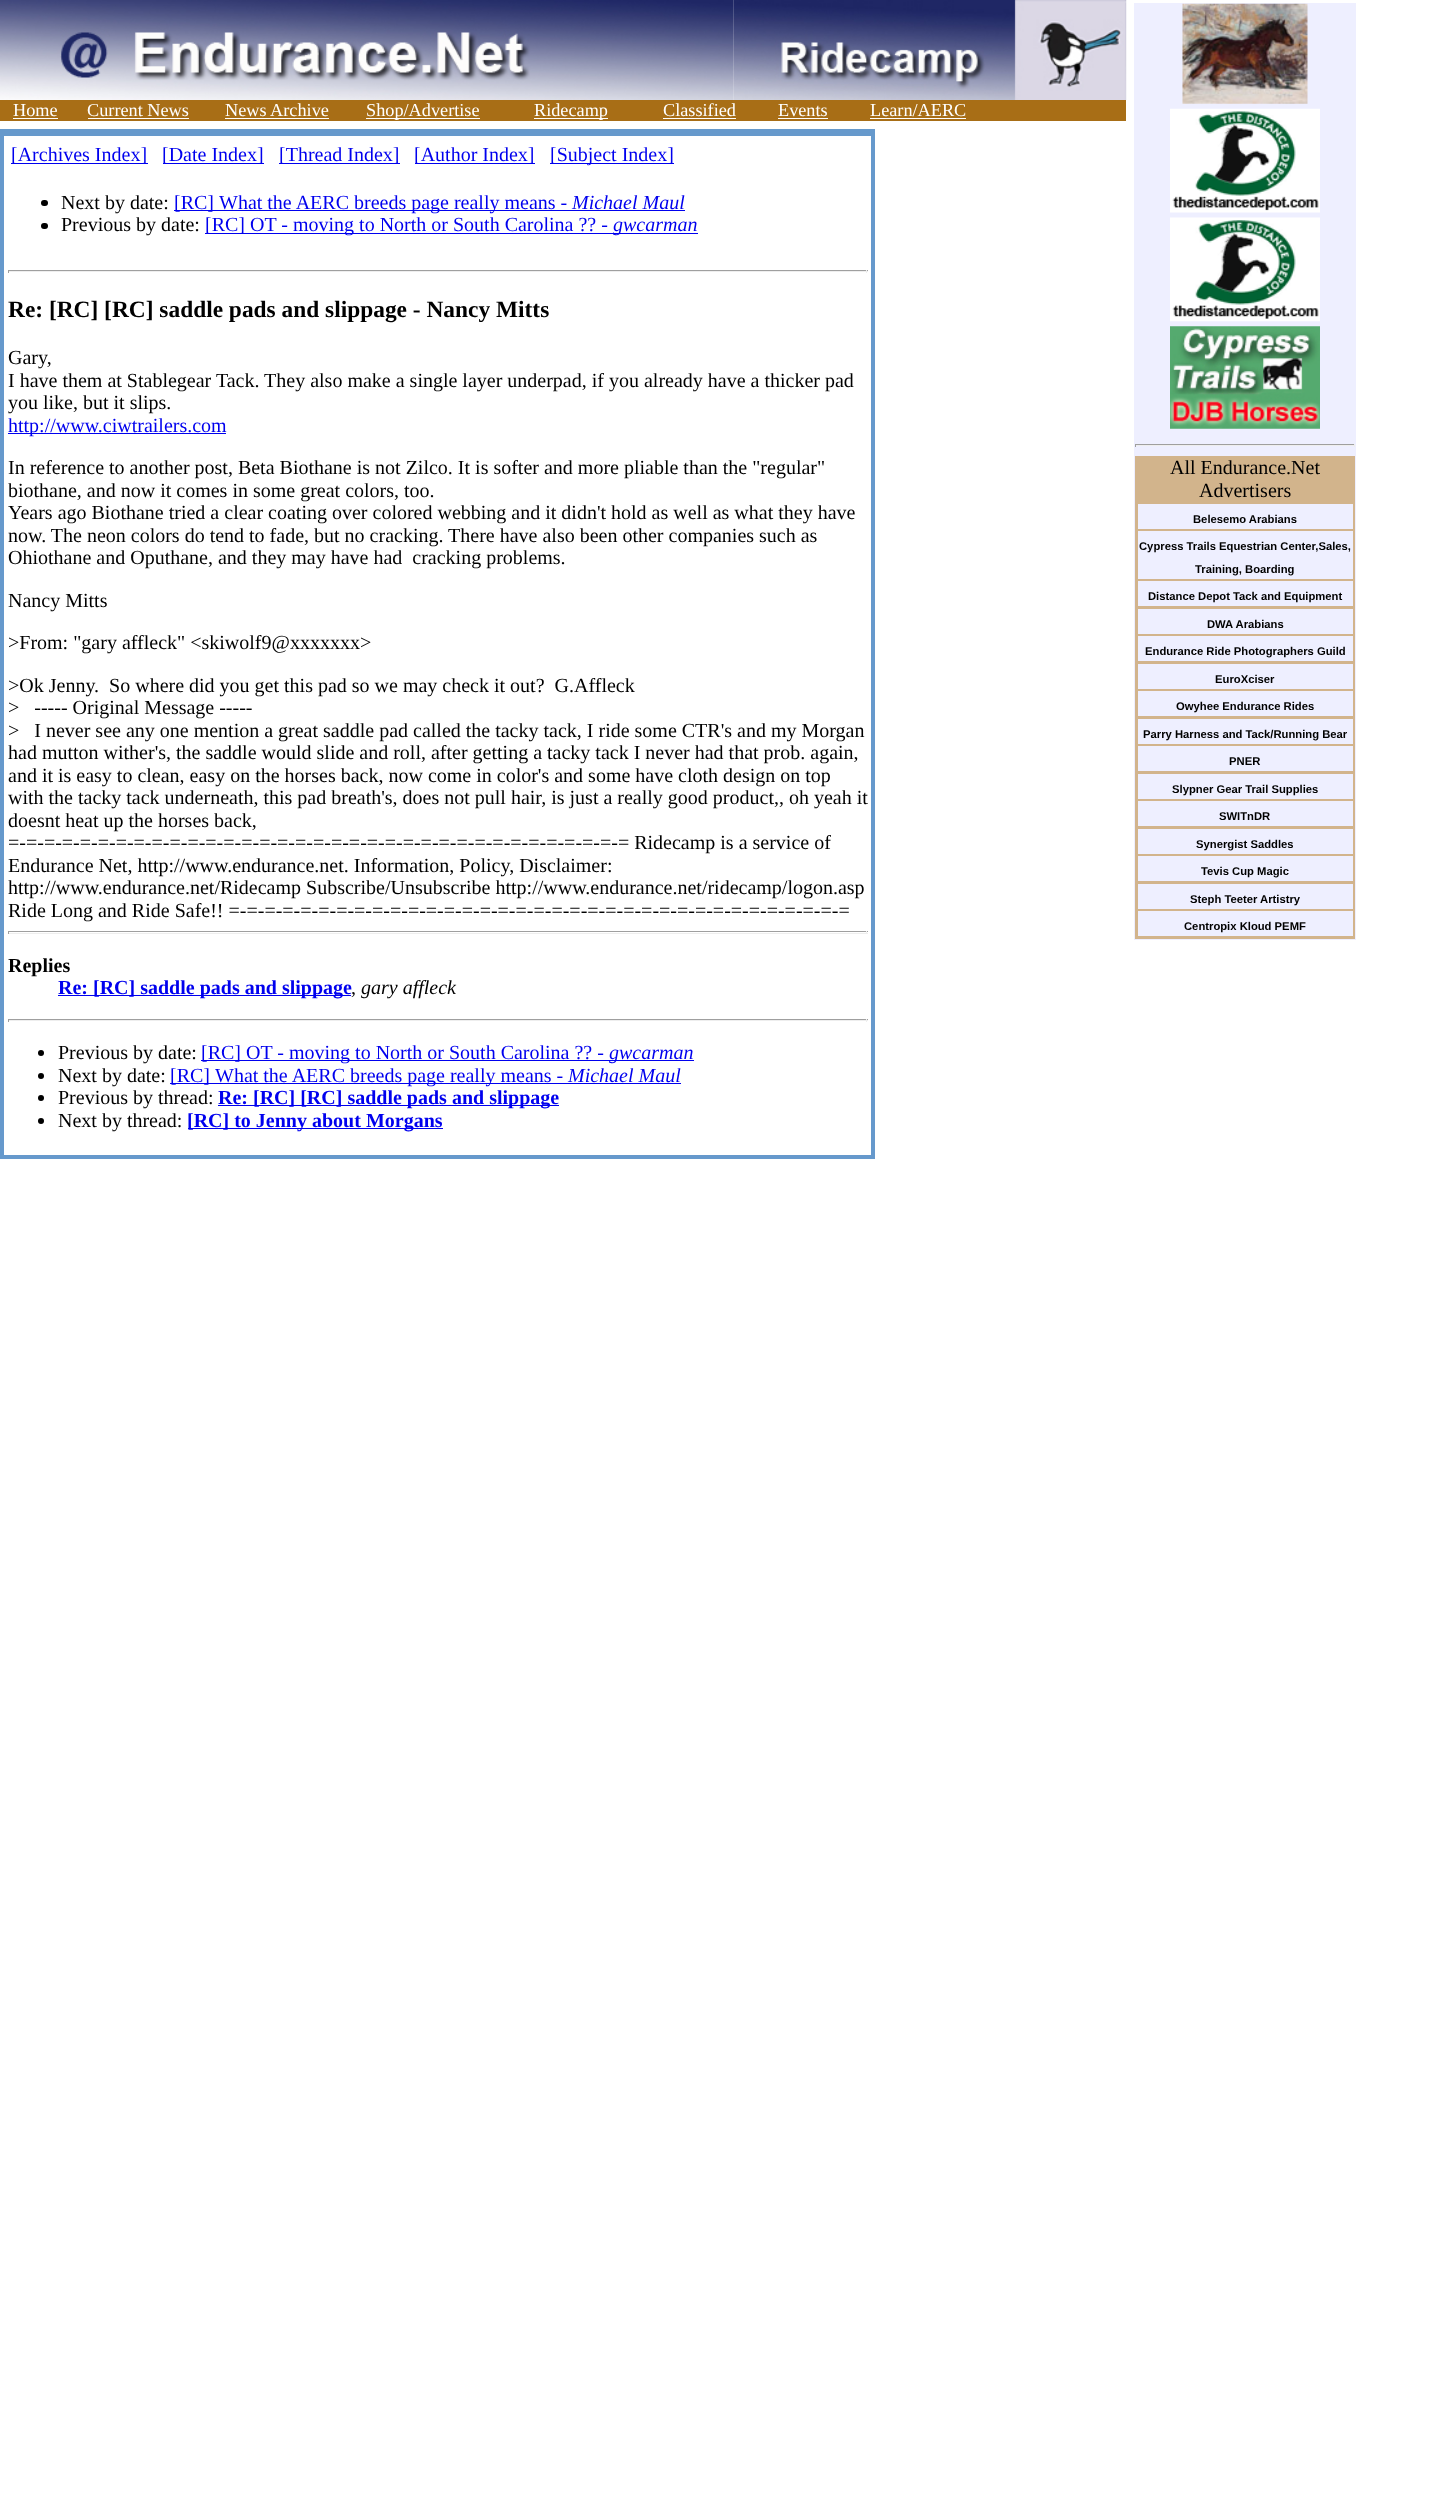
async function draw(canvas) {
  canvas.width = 1446
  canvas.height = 2498
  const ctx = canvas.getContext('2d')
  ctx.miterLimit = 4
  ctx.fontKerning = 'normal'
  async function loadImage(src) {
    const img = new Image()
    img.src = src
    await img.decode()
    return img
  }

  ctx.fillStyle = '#fff'
  ctx.fillRect(0, 0, 1446, 2498)
  ctx.drawImage(await loadImage('image0.png'), 0, 0, 734, 100)
  ctx.drawImage(await loadImage('image1.png'), 733, 0, 394, 100)
  ctx.fillStyle = '#a86e16'
  ctx.fillRect(0, 100, 1126, 21)
  ctx.font = '18.25px Liberation Serif'
  ctx.fillStyle = '#fff'
  ctx.fillText('Home', 13, 116)
  ctx.fillRect(13, 118, 45, 1)
  ctx.fillText('Current News', 87, 116)
  ctx.fillRect(88, 118, 101, 1)
  ctx.fillText('News Archive', 225, 116)
  ctx.fillRect(225, 118, 104, 1)
  ctx.fillRect(366, 118, 114, 1)
  ctx.fillText('Shop/Advertise', 366, 116)
  ctx.fillRect(534, 118, 74, 1)
  ctx.fillText('Ridecamp', 534, 116)
  ctx.fillText('Classified', 663, 116)
  ctx.fillRect(663, 118, 73, 1)
  ctx.fillText('Events', 778, 116)
  ctx.fillRect(778, 118, 50, 1)
  ctx.fillText('Learn/AERC', 870, 116)
  ctx.fillRect(870, 118, 96, 1)
  ctx.fillStyle = '#69c'
  ctx.fillRect(0, 129, 875, 1030)
  ctx.fillStyle = '#fff'
  ctx.fillRect(4, 136, 867, 1019)
  ctx.fillStyle = '#00e'
  ctx.fillRect(11, 163, 137, 1)
  ctx.font = '20px Liberation Serif'
  ctx.fillText('[Archives Index]', 11, 161)
  ctx.fillRect(163, 163, 101, 1)
  ctx.fillText('[Date Index]', 162, 161)
  ctx.fillRect(279, 163, 121, 1)
  ctx.fillText('[Thread Index]', 279, 161)
  ctx.fillRect(415, 163, 120, 1)
  ctx.fillText('[Author Index]', 414, 161)
  ctx.fillRect(550, 163, 124, 1)
  ctx.fillText('[Subject Index]', 550, 161)
  ctx.fillStyle = '#000'
  ctx.beginPath()
  ctx.roundRect(41, 200, 7, 6, 3)
  ctx.fill()
  ctx.fillText('Next by date:', 61, 209)
  ctx.fillStyle = '#00e'
  ctx.fillRect(174, 210, 511, 1)
  ctx.fillText('[RC]', 174, 209)
  ctx.fillText('What the AERC breeds page really means -', 219, 209)
  ctx.font = 'italic 20px Liberation Serif'
  ctx.fillText('Michael Maul', 572, 209)
  ctx.fillStyle = '#000'
  ctx.beginPath()
  ctx.roundRect(41, 223, 7, 6, 3)
  ctx.fill()
  ctx.font = '20px Liberation Serif'
  ctx.fillText('Previous by date:', 61, 231)
  ctx.fillStyle = '#00e'
  ctx.fillRect(205, 233, 493, 1)
  ctx.fillText('[RC] OT - moving to North or South Carolina ?? -', 205, 231)
  ctx.font = 'italic 20px Liberation Serif'
  ctx.fillText('gwcarman', 613, 231)
  ctx.fillStyle = '#9f9f9f'
  ctx.fillRect(8, 270, 860, 1)
  ctx.fillStyle = '#eee'
  ctx.fillRect(866, 270, 1, 3)
  ctx.fillRect(8, 271, 860, 1)
  ctx.fillStyle = '#9f9f9f'
  ctx.fillRect(8, 270, 1, 3)
  ctx.font = 'bold 23.4px Liberation Serif'
  ctx.fillStyle = '#000'
  ctx.fillText('Re: [RC] [RC] saddle pads and slippage - Nancy Mitts', 8, 317)
  ctx.font = '20px Liberation Serif'
  ctx.fillText('Gary,', 8, 364)
  ctx.fillText('I have them at Stablegear Tack. They also make a single layer underpad, if you already have a thicker pad', 8, 387)
  ctx.fillText('you like, but it slips.', 8, 409)
  ctx.fillStyle = '#00e'
  ctx.fillRect(8, 433, 218, 1)
  ctx.fillText('http://www.ciwtrailers.com', 8, 432)
  ctx.fillStyle = '#000'
  ctx.fillText('In reference to another post, Beta Biothane is not Zilco. It is softer and more pliable than the "regular"', 8, 474)
  ctx.fillText('biothane, and now it comes in some great colors, too.', 8, 497)
  ctx.fillText('Years ago Biothane tried a clear coating over colored webbing and it didn\'t hold as well as what they have', 8, 519)
  ctx.fillText('now. The neon colors do tend to fade, but no cracking. There have also been other companies such as', 8, 542)
  ctx.fillText('Ohiothane and Oputhane, and they may have had  cracking problems.', 8, 564)
  ctx.fillText('Nancy Mitts', 8, 607)
  ctx.fillText('>From: "gary affleck" <skiwolf9@xxxxxxx>', 8, 649)
  ctx.fillText('>Ok Jenny.  So where did you get this pad so we may check it out?  G.Affleck', 8, 692)
  ctx.fillText('>   ----- Original Message -----', 8, 714)
  ctx.fillText('>   I never see any one mention a great saddle pad called the tacky tack, I ride some CTR\'s and my Morgan', 8, 737)
  ctx.fillText('had mutton wither\'s, the saddle would slide and roll, after getting a tacky tack I never had that prob. again,', 8, 759)
  ctx.fillText('and it is easy to clean, easy on the horses back, now come in color\'s and some have cloth design on top', 8, 782)
  ctx.fillText('with the tacky tack underneath, this pad breath\'s, does not pull hair, is just a really good product,, oh yeah it', 8, 804)
  ctx.fillText('doesnt heat up the horses back,', 8, 827)
  ctx.fillText('=-=-=-=-=-=-=-=-=-=-=-=-=-=-=-=-=-=-=-=-=-=-=-=-=-=-=-=-=-=-=-=-=-=-= Ridecamp is a service of', 8, 849)
  ctx.fillText('Endurance Net, http://www.endurance.net. Information, Policy, Disclaimer:', 8, 872)
  ctx.fillText('http://www.endurance.net/Ridecamp Subscribe/Unsubscribe http://www.endurance.net/ridecamp/logon.asp', 8, 894)
  ctx.fillText('Ride Long and Ride Safe!! =-=-=-=-=-=-=-=-=-=-=-=-=-=-=-=-=-=-=-=-=-=-=-=-=-=-=-=-=-=-=-=-=-=-=', 8, 917)
  ctx.fillStyle = '#9f9f9f'
  ctx.fillRect(8, 931, 860, 1)
  ctx.fillStyle = '#eee'
  ctx.fillRect(866, 931, 1, 3)
  ctx.fillRect(8, 933, 860, 1)
  ctx.fillStyle = '#9f9f9f'
  ctx.fillRect(8, 931, 1, 3)
  ctx.font = 'bold 20px Liberation Serif'
  ctx.fillStyle = '#000'
  ctx.fillText('Replies', 8, 972)
  ctx.fillStyle = '#00e'
  ctx.fillRect(58, 995, 293, 1)
  ctx.fillText('Re: [RC] saddle pads and slippage', 58, 994)
  ctx.font = '20px Liberation Serif'
  ctx.fillStyle = '#000'
  ctx.fillText(',', 351, 994)
  ctx.font = 'italic 20px Liberation Serif'
  ctx.fillText('gary affleck', 361, 994)
  ctx.fillStyle = '#9f9f9f'
  ctx.fillRect(8, 1019, 860, 1)
  ctx.fillStyle = '#eee'
  ctx.fillRect(866, 1019, 1, 3)
  ctx.fillRect(8, 1020, 860, 1)
  ctx.fillStyle = '#9f9f9f'
  ctx.fillRect(8, 1019, 1, 3)
  ctx.fillStyle = '#000'
  ctx.beginPath()
  ctx.arc(41, 1053, 3, 0, 2 * Math.PI)
  ctx.fill()
  ctx.font = '20px Liberation Serif'
  ctx.fillText('Previous by date:', 58, 1059)
  ctx.fillStyle = '#00e'
  ctx.fillRect(201, 1060, 493, 1)
  ctx.fillText('[RC] OT - moving to North or South Carolina ?? -', 201, 1059)
  ctx.font = 'italic 20px Liberation Serif'
  ctx.fillText('gwcarman', 609, 1059)
  ctx.fillStyle = '#000'
  ctx.beginPath()
  ctx.arc(41, 1076, 3, 0, 2 * Math.PI)
  ctx.fill()
  ctx.font = '20px Liberation Serif'
  ctx.fillText('Next by date:', 58, 1082)
  ctx.fillStyle = '#00e'
  ctx.fillRect(170, 1083, 511, 1)
  ctx.fillText('[RC]', 170, 1082)
  ctx.fillText('What the AERC breeds page really means -', 215, 1082)
  ctx.font = 'italic 20px Liberation Serif'
  ctx.fillText('Michael Maul', 568, 1082)
  ctx.fillStyle = '#000'
  ctx.beginPath()
  ctx.arc(41, 1098, 3, 0, 2 * Math.PI)
  ctx.fill()
  ctx.font = '20px Liberation Serif'
  ctx.fillText('Previous by thread:', 58, 1104)
  ctx.fillStyle = '#00e'
  ctx.fillRect(218, 1105, 341, 1)
  ctx.font = 'bold 20px Liberation Serif'
  ctx.fillText('Re: [RC] [RC] saddle pads and slippage', 218, 1104)
  ctx.fillStyle = '#000'
  ctx.beginPath()
  ctx.arc(41, 1121, 3, 0, 2 * Math.PI)
  ctx.fill()
  ctx.font = '20px Liberation Serif'
  ctx.fillText('Next by thread:', 58, 1127)
  ctx.fillStyle = '#00e'
  ctx.fillRect(188, 1128, 255, 1)
  ctx.font = 'bold 20px Liberation Serif'
  ctx.fillText('[RC] to Jenny about Morgans', 187, 1127)
  ctx.fillStyle = '#eeefff'
  ctx.fillRect(1134, 3, 222, 937)
  ctx.drawImage(await loadImage('image2.png'), 1182, 3, 126, 101)
  ctx.drawImage(await loadImage('image3.png'), 1170, 108, 150, 105)
  ctx.drawImage(await loadImage('image4.png'), 1170, 217, 150, 105)
  ctx.drawImage(await loadImage('image5.png'), 1170, 326, 150, 103)
  ctx.fillStyle = '#9f9f9f'
  ctx.fillRect(1135, 444, 220, 1)
  ctx.fillStyle = '#eee'
  ctx.fillRect(1354, 444, 1, 3)
  ctx.fillRect(1135, 445, 220, 1)
  ctx.fillStyle = '#9f9f9f'
  ctx.fillRect(1135, 444, 1, 3)
  ctx.fillStyle = '#d2b48c'
  ctx.fillRect(1135, 456, 220, 483)
  ctx.font = '20px Liberation Serif'
  ctx.fillStyle = '#000'
  ctx.fillText('All Endurance.Net', 1170, 474)
  ctx.fillText('Advertisers', 1199, 497)
  ctx.fillStyle = '#eeefff'
  ctx.fillRect(1138, 504, 215, 25)
  ctx.font = 'bold 11.25px Liberation Sans'
  ctx.fillStyle = '#000'
  ctx.fillText('Belesemo Arabians', 1193, 523)
  ctx.fillStyle = '#eeefff'
  ctx.fillRect(1138, 531, 215, 48)
  ctx.fillStyle = '#000'
  ctx.fillText('Cypress Trails Equestrian Center,Sales,', 1139, 550)
  ctx.fillText('Training, Boarding', 1195, 573)
  ctx.fillStyle = '#eeefff'
  ctx.fillRect(1138, 581, 215, 25)
  ctx.fillStyle = '#000'
  ctx.fillText('Distance Depot Tack and Equipment', 1148, 600)
  ctx.fillStyle = '#eeefff'
  ctx.fillRect(1138, 609, 215, 25)
  ctx.fillStyle = '#000'
  ctx.fillText('DWA Arabians', 1207, 628)
  ctx.fillStyle = '#eeefff'
  ctx.fillRect(1138, 636, 215, 25)
  ctx.fillStyle = '#000'
  ctx.fillText('Endurance Ride Photographers Guild', 1145, 655)
  ctx.fillStyle = '#eeefff'
  ctx.fillRect(1138, 664, 215, 25)
  ctx.fillStyle = '#000'
  ctx.fillText('EuroXciser', 1215, 683)
  ctx.fillStyle = '#eeefff'
  ctx.fillRect(1138, 691, 215, 25)
  ctx.fillStyle = '#000'
  ctx.fillText('Owyhee Endurance Rides', 1176, 710)
  ctx.fillStyle = '#eeefff'
  ctx.fillRect(1138, 719, 215, 25)
  ctx.fillStyle = '#000'
  ctx.fillText('Parry Harness and Tack/Running Bear', 1143, 738)
  ctx.fillStyle = '#eeefff'
  ctx.fillRect(1138, 746, 215, 25)
  ctx.fillStyle = '#000'
  ctx.fillText('PNER', 1229, 765)
  ctx.fillStyle = '#eeefff'
  ctx.fillRect(1138, 774, 215, 25)
  ctx.fillStyle = '#000'
  ctx.fillText('Slypner Gear Trail Supplies', 1172, 793)
  ctx.fillStyle = '#eeefff'
  ctx.fillRect(1138, 801, 215, 25)
  ctx.fillStyle = '#000'
  ctx.fillText('SWITnDR', 1219, 820)
  ctx.fillStyle = '#eeefff'
  ctx.fillRect(1138, 829, 215, 25)
  ctx.fillStyle = '#000'
  ctx.fillText('Synergist Saddles', 1196, 848)
  ctx.fillStyle = '#eeefff'
  ctx.fillRect(1138, 856, 215, 25)
  ctx.fillStyle = '#000'
  ctx.fillText('Tevis Cup Magic', 1201, 875)
  ctx.fillStyle = '#eeefff'
  ctx.fillRect(1138, 884, 215, 25)
  ctx.fillStyle = '#000'
  ctx.fillText('Steph Teeter Artistry', 1190, 903)
  ctx.fillStyle = '#eeefff'
  ctx.fillRect(1138, 911, 215, 25)
  ctx.fillStyle = '#000'
  ctx.fillText('Centropix Kloud PEMF', 1184, 930)
}

draw(document.querySelector('canvas'))
